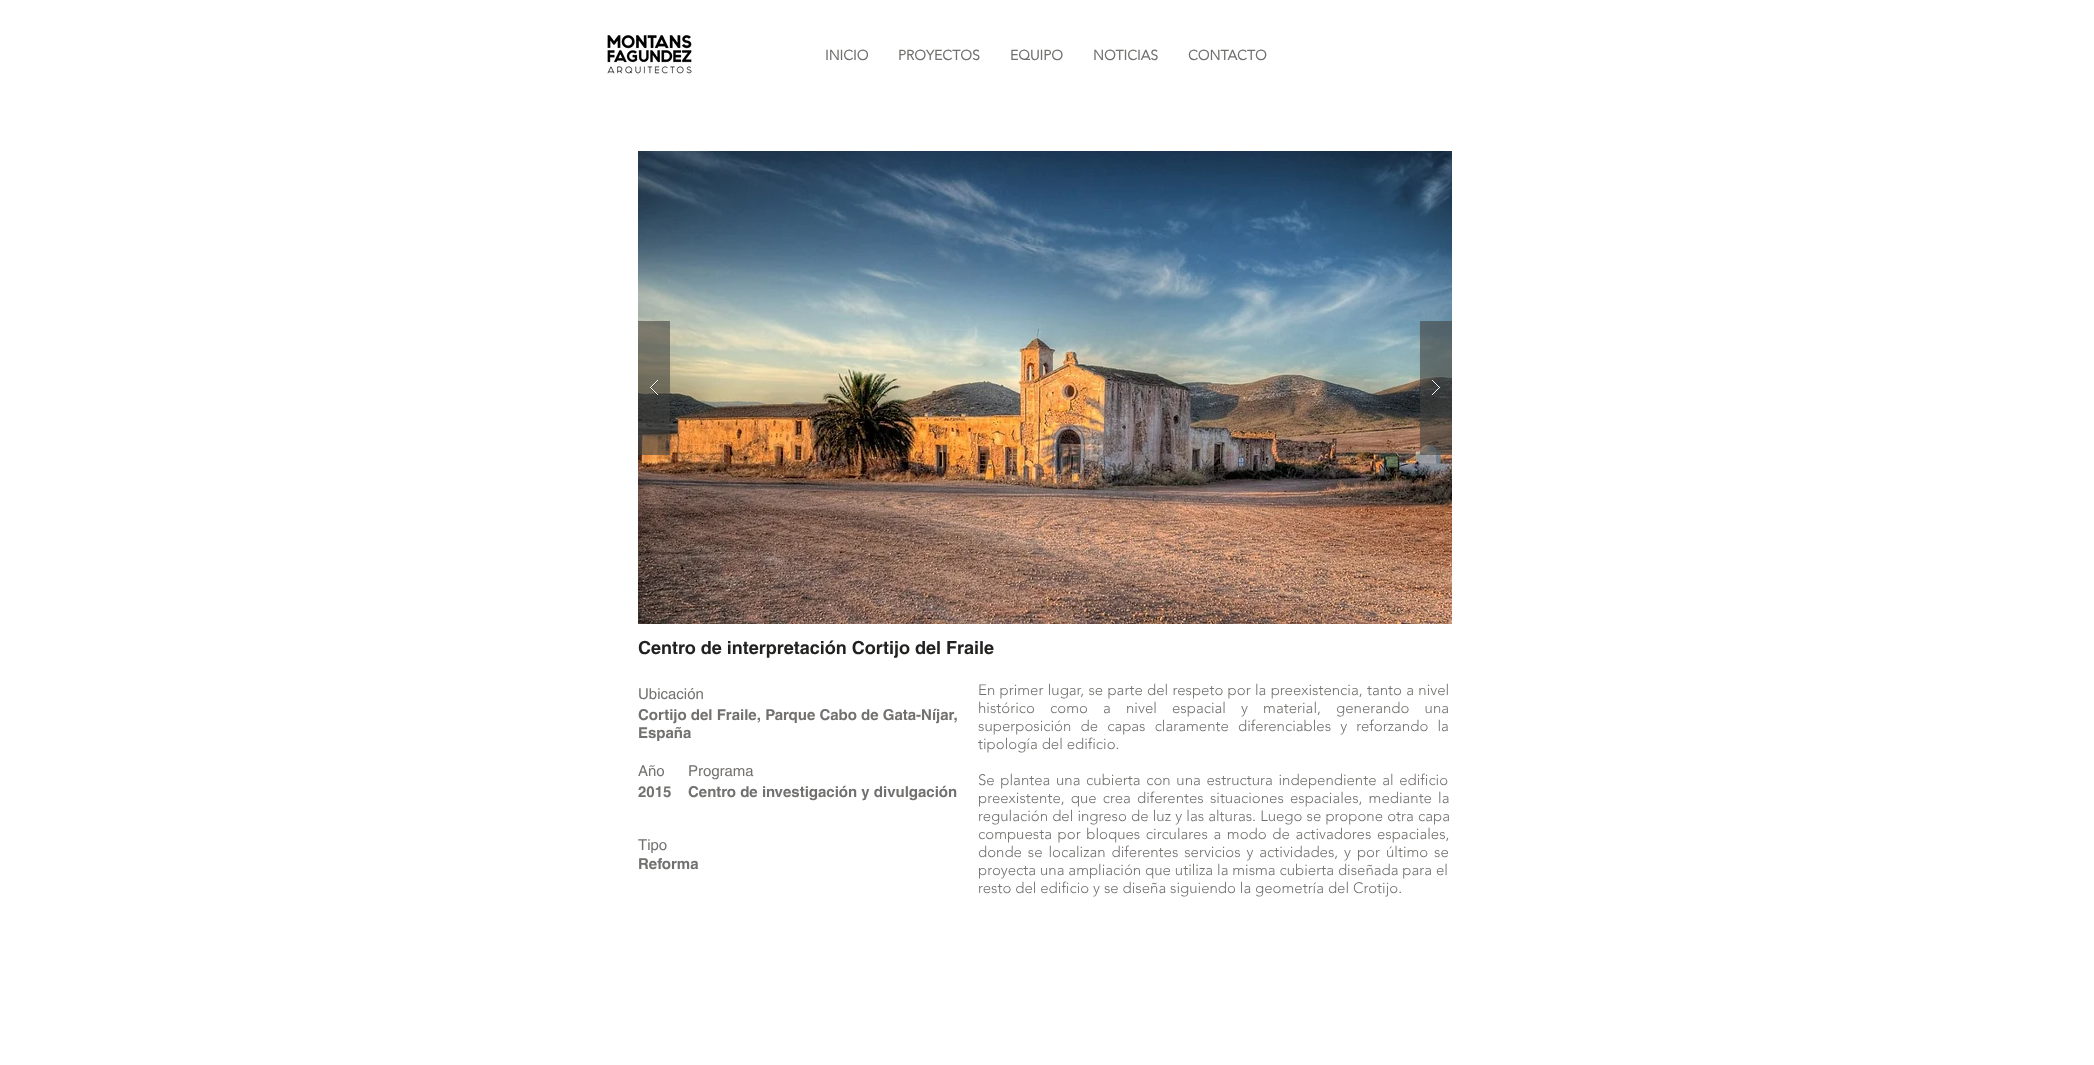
async function draw(canvas) {
  canvas.width = 2094
  canvas.height = 1065
  const ctx = canvas.getContext('2d')
  ctx.miterLimit = 4
  ctx.fontKerning = 'normal'
  async function loadImage(src) {
    const img = new Image()
    img.src = src
    await img.decode()
    return img
  }

  ctx.fillStyle = '#fff'
  ctx.fillRect(0, 0, 2094, 1065)
  ctx.drawImage(await loadImage('image0.png'), 607, 35, 85, 39)
  ctx.font = 'bold 14px "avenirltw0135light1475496"'
  ctx.fillStyle = '#72716f'
  ctx.fillText('INICIO', 825, 60)
  ctx.fillText('PROYECTOS', 898, 60)
  ctx.fillText('EQUIPO', 1010, 60)
  ctx.fillText('NOTICIAS', 1093, 60)
  ctx.fillText('CONTACTO', 1188, 60)
  ctx.drawImage(await loadImage('image1.png'), 638, 151, 814, 473)
  ctx.fillStyle = '#43423f99'
  ctx.fillRect(638, 321, 32, 134)
  ctx.drawImage(await loadImage('image2.png'), 650, 380, 8, 16)
  ctx.fillRect(1420, 321, 32, 134)
  ctx.drawImage(await loadImage('image3.png'), 1432, 380, 8, 16)
  ctx.font = 'bold 18px helvetica'
  ctx.fillStyle = '#222120'
  ctx.fillText('Centro de interpretación Cortijo del Fraile', 638, 654)
  ctx.font = '15px helvetica'
  ctx.fillStyle = '#72716f'
  ctx.fillText('Ubicación', 638, 699)
  ctx.wordSpacing = '0.4px'
  ctx.font = '300 15px "avenirltw0135light1475496"'
  ctx.fillText('En primer lugar, se parte del respeto por la preexistencia, tanto a nivel', 978, 695)
  ctx.wordSpacing = '11.25px'
  ctx.fillText('histórico como a nivel espacial y material, generando una', 978, 713)
  ctx.wordSpacing = '5.25px'
  ctx.fillText('superposición de capas claramente diferenciables y reforzando la', 978, 731)
  ctx.wordSpacing = '0px'
  ctx.fillText('tipología del edificio.', 978, 749)
  ctx.wordSpacing = '1.75px'
  ctx.fillText('Se plantea una cubierta con una estructura independiente al edificio', 978, 785)
  ctx.wordSpacing = '2.25px'
  ctx.fillText('preexistente, que crea diferentes situaciones espaciales, mediante la', 978, 803)
  ctx.wordSpacing = '0.25px'
  ctx.fillText('regulación del ingreso de luz y las alturas. Luego se propone otra capa', 978, 821)
  ctx.wordSpacing = '1.75px'
  ctx.fillText('compuesta por bloques circulares a modo de activadores espaciales,', 978, 839)
  ctx.wordSpacing = '2px'
  ctx.fillText('donde se localizan diferentes servicios y actividades, y por último se', 978, 857)
  ctx.wordSpacing = '0px'
  ctx.fillText('proyecta una ampliación que utiliza la misma cubierta diseñada para el', 978, 875)
  ctx.fillText('resto del edificio y se diseña siguiendo la geometría del Crotijo.', 978, 893)
  ctx.font = 'bold 15px helvetica'
  ctx.fillText('Cortijo del Fraile, Parque Cabo de Gata-Níjar,', 638, 720)
  ctx.fillText('España', 638, 738)
  ctx.font = '15px helvetica'
  ctx.fillText('Año', 638, 776)
  ctx.fillText('Programa', 688, 776)
  ctx.font = 'bold 15px helvetica'
  ctx.fillText('2015', 638, 797)
  ctx.fillText('Centro de investigación y divulgación', 688, 797)
  ctx.font = '15px helvetica'
  ctx.fillText('Tipo', 638, 850)
  ctx.font = 'bold 15px helvetica'
  ctx.fillText('Reforma', 638, 869)
}

draw(document.querySelector('canvas'))
